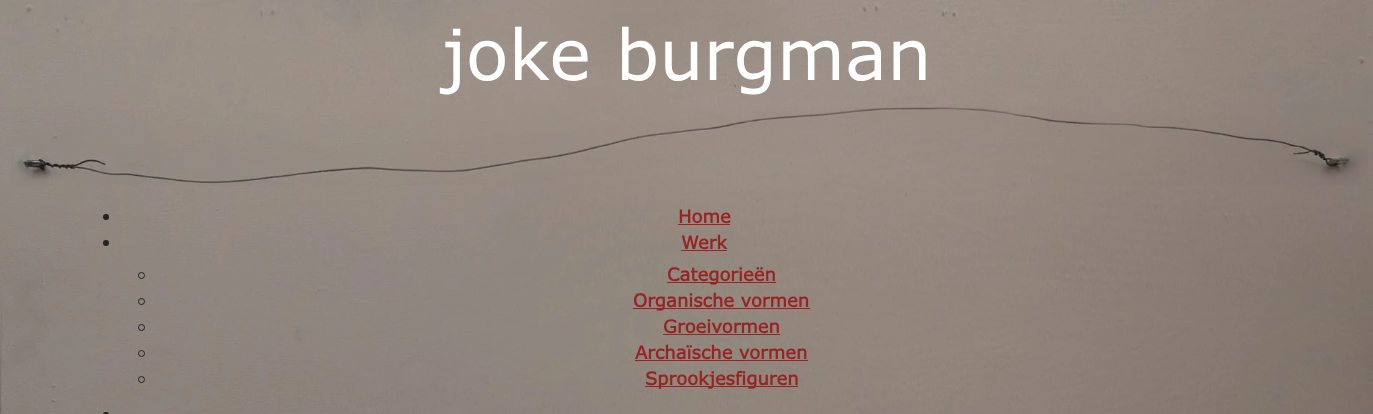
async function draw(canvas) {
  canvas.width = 1373
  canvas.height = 414
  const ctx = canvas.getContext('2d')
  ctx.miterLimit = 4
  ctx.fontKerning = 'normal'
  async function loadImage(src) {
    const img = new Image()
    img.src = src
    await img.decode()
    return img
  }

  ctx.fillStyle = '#fff'
  ctx.fillRect(0, 0, 1373, 414)
  ctx.drawImage(await loadImage('image0.png'), 0, 0, 1373, 414)
  ctx.font = '70px Verdana'
  ctx.fillText('joke burgman', 442, 80)
  ctx.drawImage(await loadImage('image1.png'), 11, 107, 1357, 79)
  ctx.fillStyle = '#222'
  ctx.beginPath()
  ctx.arc(106, 217, 3, 0, 2 * Math.PI)
  ctx.fill()
  ctx.font = 'bold 18px Verdana'
  ctx.fillStyle = '#922'
  ctx.fillText('Home', 678, 223)
  ctx.fillRect(678, 224, 52, 1)
  ctx.fillStyle = '#222'
  ctx.beginPath()
  ctx.arc(106, 243, 3, 0, 2 * Math.PI)
  ctx.fill()
  ctx.fillStyle = '#922'
  ctx.fillText('Werk', 681, 249)
  ctx.fillRect(681, 250, 46, 1)
  ctx.beginPath()
  ctx.arc(141.5, 275.5, 3, 0, 2 * Math.PI)
  ctx.strokeStyle = '#222'
  ctx.stroke()
  ctx.fillRect(667, 282, 109, 1)
  ctx.fillText('Categorieën', 667, 281)
  ctx.beginPath()
  ctx.arc(141.5, 301.5, 3, 0, 2 * Math.PI)
  ctx.stroke()
  ctx.fillRect(633, 308, 177, 1)
  ctx.fillText('Organische vormen', 633, 307)
  ctx.beginPath()
  ctx.arc(141.5, 327.5, 3, 0, 2 * Math.PI)
  ctx.stroke()
  ctx.fillText('Groeivormen', 663, 333)
  ctx.fillRect(663, 334, 117, 1)
  ctx.beginPath()
  ctx.arc(141.5, 353.5, 3, 0, 2 * Math.PI)
  ctx.stroke()
  ctx.fillText('Archaïsche vormen', 635, 359)
  ctx.fillRect(635, 360, 173, 1)
  ctx.beginPath()
  ctx.arc(141.5, 379.5, 3, 0, 2 * Math.PI)
  ctx.stroke()
  ctx.fillRect(645, 386, 153, 1)
  ctx.fillText('Sprookjesfiguren', 645, 385)
  ctx.fillStyle = '#222'
  ctx.beginPath()
  ctx.roundRect(103, 412, 6, 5, 3)
  ctx.fill()
}

draw(document.querySelector('canvas'))
